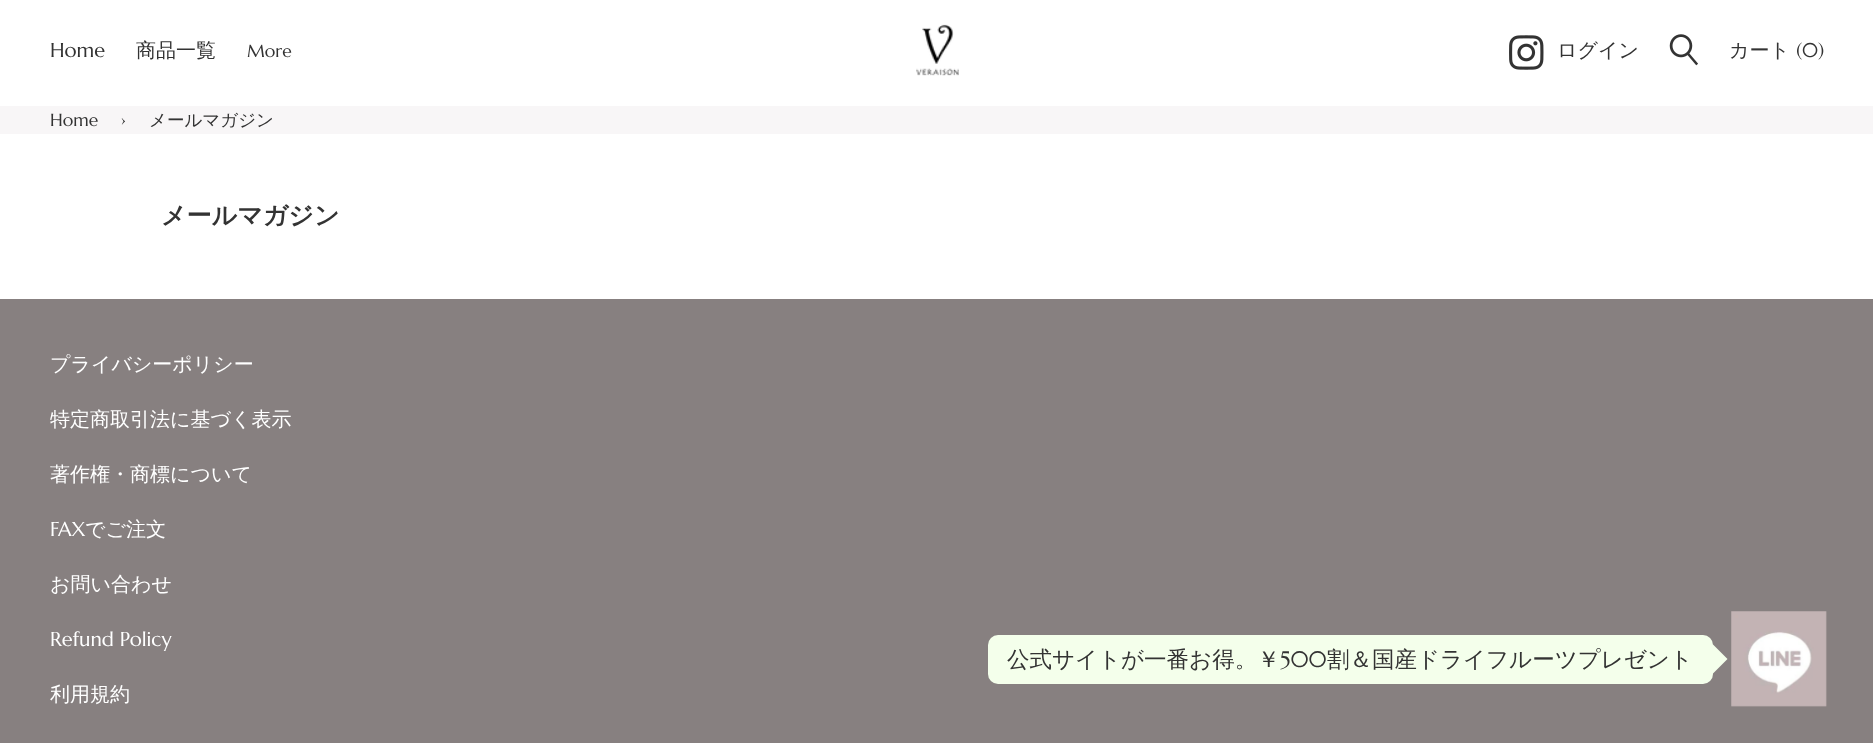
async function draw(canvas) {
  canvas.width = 1873
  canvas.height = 743
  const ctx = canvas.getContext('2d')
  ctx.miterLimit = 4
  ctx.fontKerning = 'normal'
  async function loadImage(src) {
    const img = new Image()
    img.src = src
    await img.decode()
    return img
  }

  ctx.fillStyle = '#f8f6f7'
  ctx.fillRect(0, 0, 1873, 743)
  ctx.fillStyle = '#fff'
  ctx.fillRect(0, 0, 1873, 106)
  ctx.font = '20px Marcellus'
  ctx.fillStyle = '#333'
  ctx.fillText('Home', 50, 57)
  ctx.font = '500 20px WenQuanYi Zen Hei'
  ctx.fillText('商品一覧', 136, 57)
  ctx.font = '17.5px Marcellus'
  ctx.fillText('More', 247, 57)
  ctx.drawImage(await loadImage('image0.png'), 916, 24, 43, 52)
  ctx.drawImage(await loadImage('image1.png'), 1509, 35, 35, 35)
  ctx.font = '500 20px WenQuanYi Zen Hei'
  ctx.fillText('ログイン', 1557, 57)
  ctx.drawImage(await loadImage('image2.png'), 1669, 34, 29, 32)
  ctx.fillText('カート', 1729, 57)
  ctx.font = '20px Marcellus'
  ctx.fillText('(0)', 1796, 57)
  ctx.font = '17.5px Marcellus'
  ctx.fillText('Home', 50, 126)
  ctx.fillText('›', 121, 126)
  ctx.font = '500 17.5px WenQuanYi Zen Hei'
  ctx.fillText('メールマガジン', 149, 126)
  ctx.fillStyle = '#fff'
  ctx.fillRect(0, 134, 1873, 165)
  ctx.font = 'bold 25px WenQuanYi Zen Hei'
  ctx.fillStyle = '#333'
  ctx.fillText('メールマガジン', 161, 224)
  ctx.fillStyle = '#878080'
  ctx.fillRect(0, 299, 1873, 444)
  ctx.font = '500 20px WenQuanYi Zen Hei'
  ctx.fillStyle = '#fff'
  ctx.fillText('プライバシーポリシー', 50, 371)
  ctx.fillText('特定商取引法に基づく表示', 50, 426)
  ctx.fillText('著作権・商標について', 50, 481)
  ctx.font = '20px Marcellus'
  ctx.fillText('FAX', 50, 536)
  ctx.font = '500 20px WenQuanYi Zen Hei'
  ctx.fillText('でご注文', 85, 536)
  ctx.fillText('お問い合わせ', 50, 591)
  ctx.font = '20px Marcellus'
  ctx.fillText('Refund Policy', 50, 646)
  ctx.font = '500 20px WenQuanYi Zen Hei'
  ctx.fillText('利用規約', 50, 701)
  ctx.fillStyle = '#f4ffeb'
  ctx.beginPath()
  ctx.roundRect(988, 635, 725, 49, 10)
  ctx.fill()
  ctx.font = '500 22.5px WenQuanYi Zen Hei'
  ctx.fillStyle = '#333'
  ctx.fillText('公式サイトが一番お得。￥', 1007, 667)
  ctx.font = '22.5px Marcellus'
  ctx.fillText('500', 1280, 667)
  ctx.font = '500 22.5px WenQuanYi Zen Hei'
  ctx.fillText('割＆国産ドライフルーツプレゼント', 1327, 667)
  ctx.fillStyle = '#f4ffeb'
  ctx.beginPath()
  ctx.moveTo(1712.5, 674)
  ctx.lineTo(1712.5, 644)
  ctx.lineTo(1727.5, 659)
  ctx.closePath()
  ctx.fill()
  ctx.drawImage(await loadImage('image3.png'), 1731, 611, 96, 96)
}

draw(document.querySelector('canvas'))
